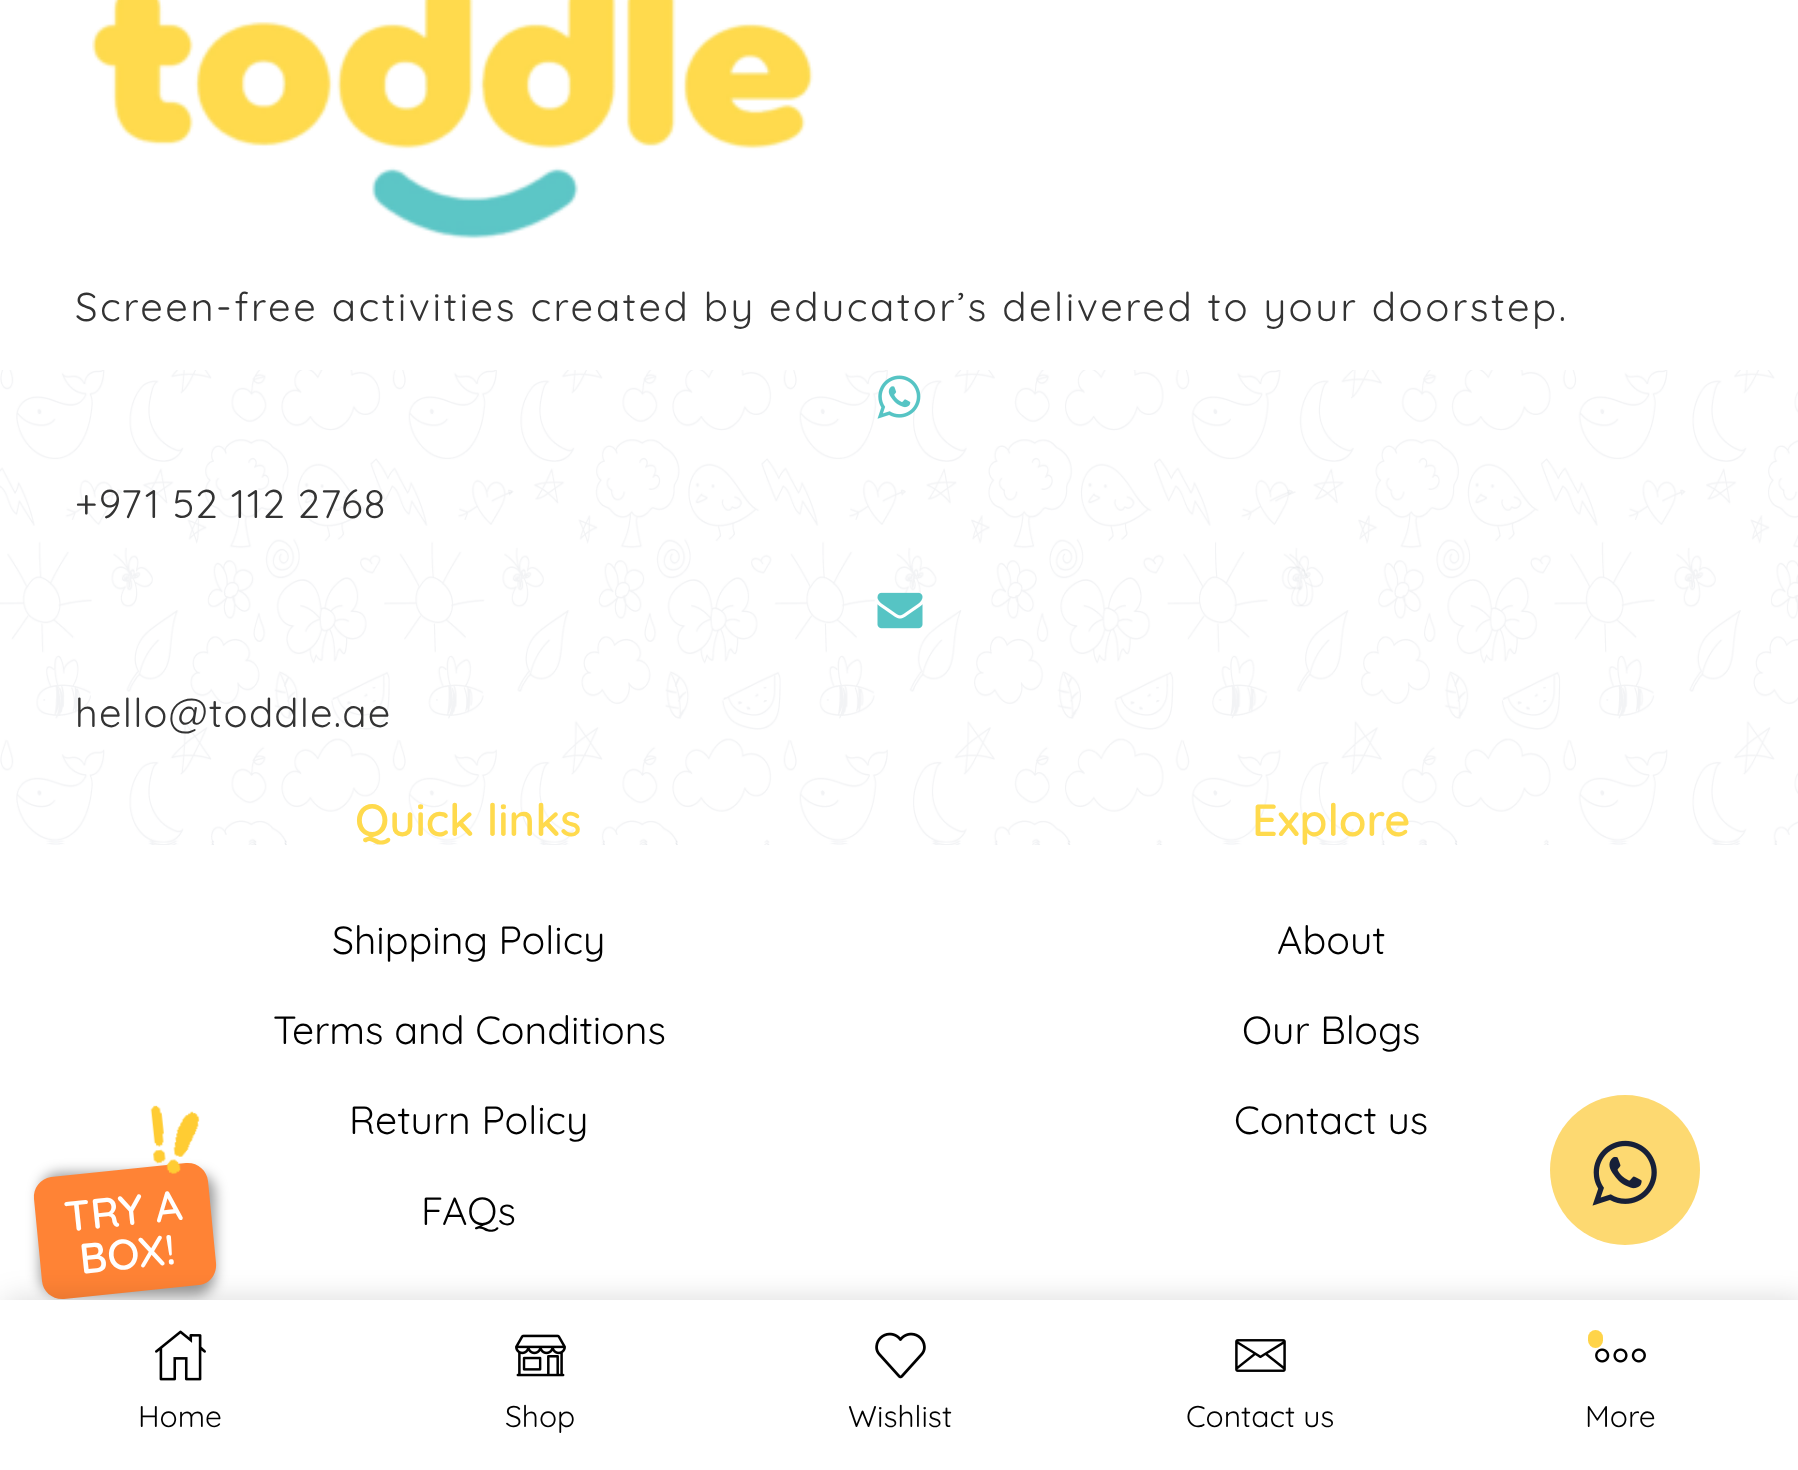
async function draw(canvas) {
  canvas.width = 1798
  canvas.height = 1470
  const ctx = canvas.getContext('2d')
  ctx.miterLimit = 4
  ctx.fontKerning = 'normal'
  async function loadImage(src) {
    const img = new Image()
    img.src = src
    await img.decode()
    return img
  }

  ctx.fillStyle = '#fff'
  ctx.fillRect(0, 0, 1798, 1470)
  ctx.drawImage(await loadImage('image0.png'), 0, 840, 1798, 5)
  ctx.drawImage(await loadImage('image1.png'), 0, 370, 1798, 473)
  ctx.drawImage(await loadImage('image2.png'), 92, 0, 722, 239)
  ctx.letterSpacing = '2.5px'
  ctx.font = '40px Quicksand'
  ctx.fillStyle = '#333'
  ctx.fillText('Screen-free activities created by educator’s delivered to your doorstep.', 75, 321)
  ctx.drawImage(await loadImage('image3.png'), 877, 375, 44, 44)
  ctx.letterSpacing = '1.25px'
  ctx.wordSpacing = '-0.5px'
  ctx.fillText('+971 52 112 2768', 75, 518)
  ctx.drawImage(await loadImage('image4.png'), 877, 592, 46, 37)
  ctx.wordSpacing = '0px'
  ctx.fillText('hello@toddle.ae', 75, 727)
  ctx.letterSpacing = '0px'
  ctx.font = '600 45px Quicksand'
  ctx.fillStyle = '#ffda4d'
  ctx.fillText('Quick links', 355, 836)
  ctx.font = '39.25px Quicksand'
  ctx.fillStyle = '#000'
  ctx.fillText('Shipping Policy', 332, 954)
  ctx.fillText('Terms and Conditions', 273, 1044)
  ctx.fillText('Return Policy', 349, 1134)
  ctx.fillText('FAQs', 421, 1225)
  ctx.font = '600 45px Quicksand'
  ctx.fillStyle = '#ffda4d'
  ctx.fillText('Explore', 1252, 836)
  ctx.font = '39.25px Quicksand'
  ctx.fillStyle = '#000'
  ctx.fillText('About', 1277, 954)
  ctx.fillText('Our Blogs', 1242, 1044)
  ctx.fillText('Contact us', 1234, 1134)
  ctx.fillStyle = '#fdd971'
  ctx.beginPath()
  ctx.arc(1625, 1170, 75, 0, 2 * Math.PI)
  ctx.fill()
  ctx.drawImage(await loadImage('image5.png'), 1592, 1140, 65, 66)
  ctx.fillStyle = '#00000066'
  ctx.filter = 'blur(6.5px)'
  ctx.beginPath()
  ctx.roundRect(40, 1173, 175, 122, 20)
  ctx.fill()
  ctx.filter = 'none'
  ctx.fillStyle = '#ff8335'
  ctx.beginPath()
  ctx.moveTo(51, 1177)
  ctx.lineTo(186, 1163)
  ctx.bezierCurveTo(197, 1162, 207, 1170, 208, 1181)
  ctx.lineTo(216, 1263)
  ctx.bezierCurveTo(217, 1274, 210, 1284, 199, 1285)
  ctx.lineTo(64, 1299)
  ctx.bezierCurveTo(53, 1300, 43, 1292, 42, 1281)
  ctx.lineTo(34, 1199)
  ctx.bezierCurveTo(33, 1188, 40, 1179, 51, 1177)
  ctx.closePath()
  ctx.fill()
  ctx.drawImage(await loadImage('image6.png'), 150, 1105, 50, 69)
  ctx.font = '600 42.5px Quicksand'
  ctx.fillStyle = '#fff'
  ctx.save()
  ctx.translate(66, 1232)
  ctx.rotate(-6 * Math.PI / 180)
  ctx.fillText('TRY A', 0, 0)
  ctx.restore()
  ctx.save()
  ctx.translate(81, 1274)
  ctx.rotate(-6 * Math.PI / 180)
  ctx.fillText('BOX!', 0, 0)
  ctx.restore()
  ctx.fillStyle = '#00000026'
  ctx.filter = 'blur(15px)'
  ctx.beginPath()
  ctx.rect(5, 1300, 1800, 170)
  ctx.fill()
  ctx.filter = 'none'
  ctx.fillStyle = '#fff'
  ctx.fillRect(0, 1300, 1798, 170)
  ctx.drawImage(await loadImage('image7.png'), 155, 1330, 51, 51)
  ctx.font = '30px Quicksand'
  ctx.fillStyle = '#000'
  ctx.fillText('Home', 138, 1427)
  ctx.drawImage(await loadImage('image8.png'), 515, 1334, 51, 43)
  ctx.fillText('Shop', 505, 1427)
  ctx.drawImage(await loadImage('image9.png'), 875, 1332, 51, 47)
  ctx.fillText('Wishlist', 848, 1427)
  ctx.drawImage(await loadImage('image10.png'), 1235, 1339, 51, 33)
  ctx.fillText('Contact us', 1186, 1427)
  ctx.fillStyle = '#ffd449'
  ctx.beginPath()
  ctx.roundRect(1588, 1330, 15, 18, 7.5)
  ctx.fill()
  ctx.drawImage(await loadImage('image11.png'), 1595, 1348, 51, 15)
  ctx.fillStyle = '#000'
  ctx.fillText('More', 1585, 1427)
}

draw(document.querySelector('canvas'))
